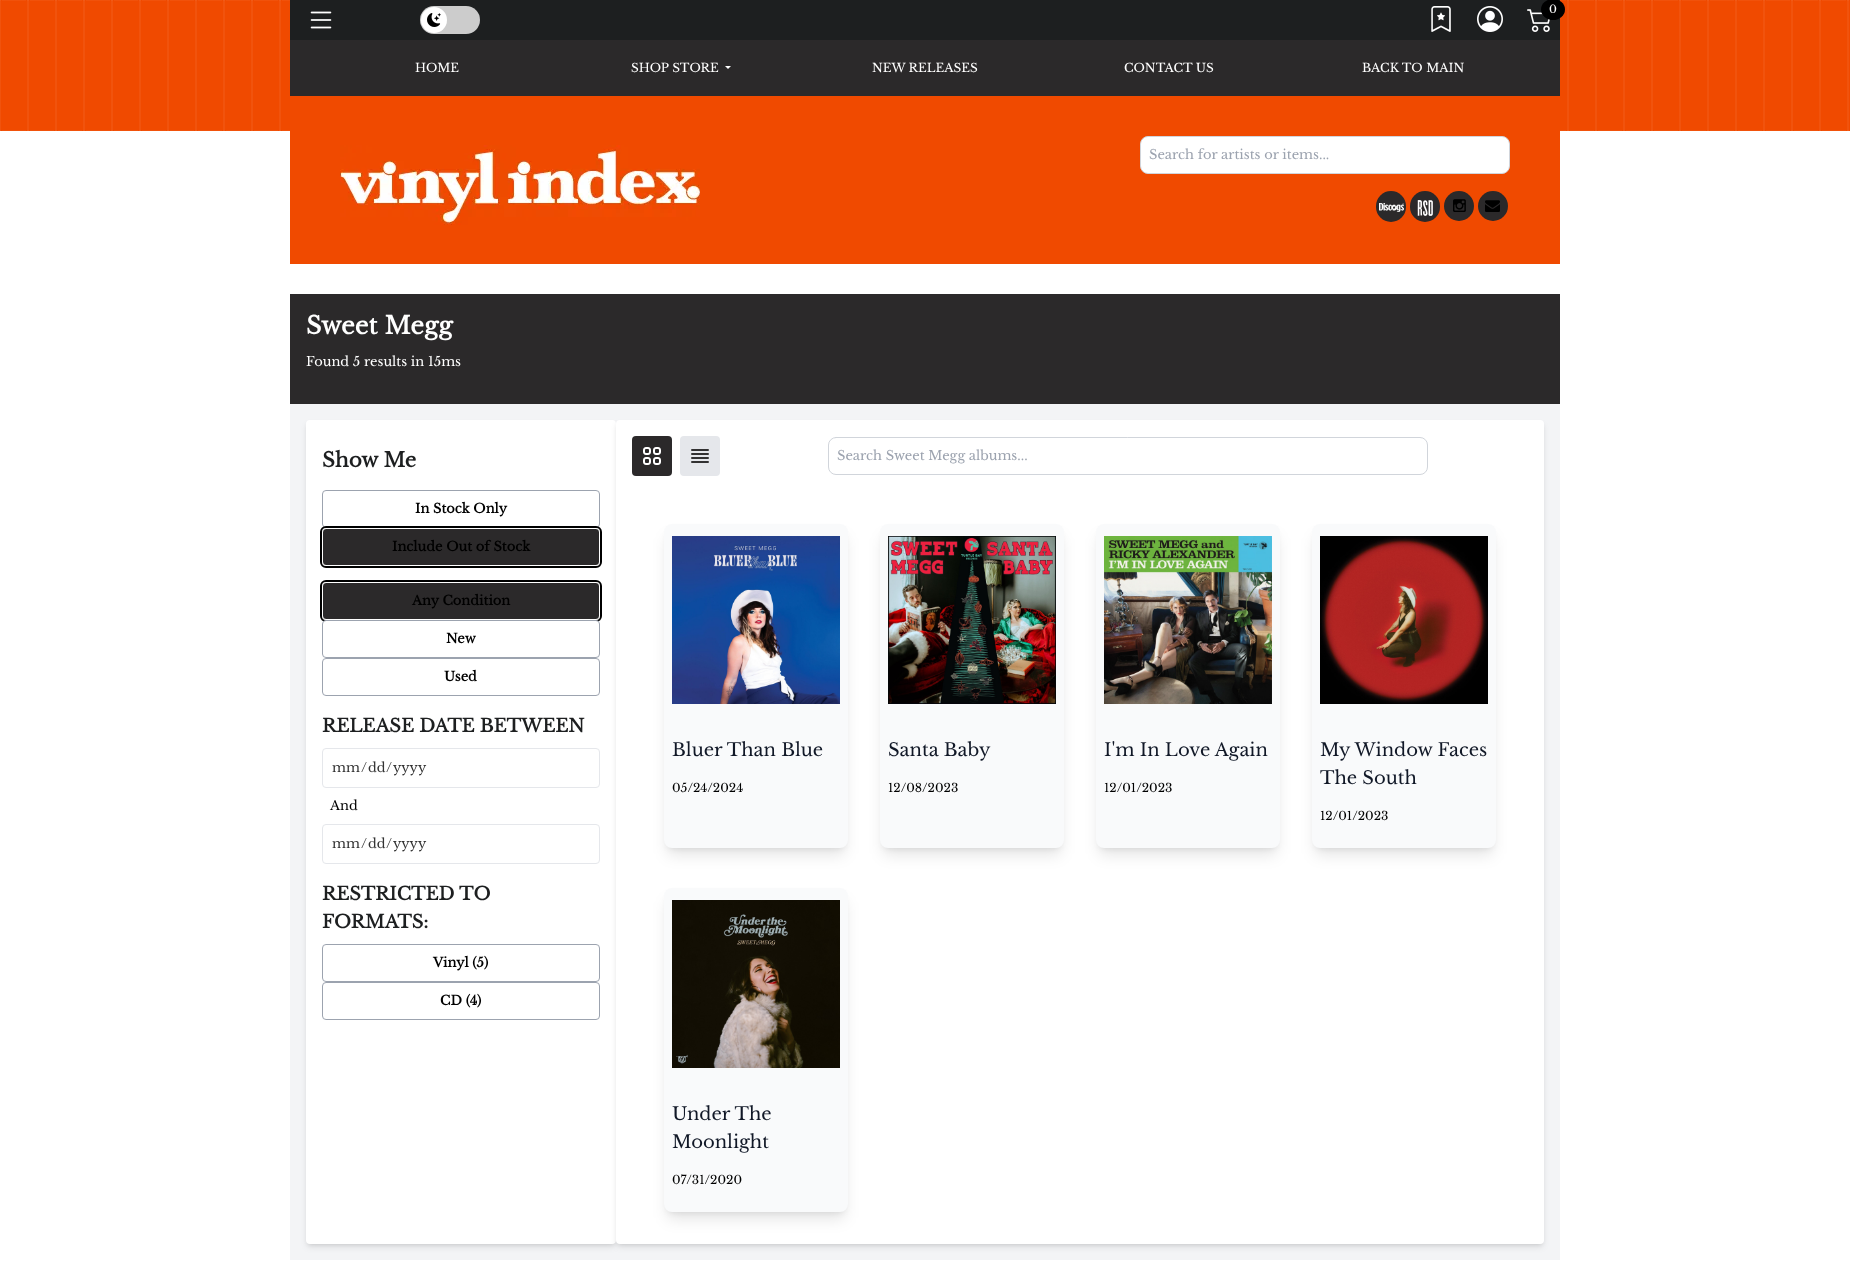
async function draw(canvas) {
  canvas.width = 1850
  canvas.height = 1276
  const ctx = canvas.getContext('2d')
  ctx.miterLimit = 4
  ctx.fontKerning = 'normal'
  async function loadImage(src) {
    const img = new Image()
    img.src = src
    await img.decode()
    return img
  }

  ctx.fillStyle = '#fff'
  ctx.fillRect(0, 0, 1850, 1276)
  ctx.drawImage(await loadImage('image0.png'), 0, 0, 1850, 131)
  ctx.fillStyle = '#1d1f20'
  ctx.fillRect(290, 0, 1270, 40)
  ctx.drawImage(await loadImage('image1.png'), 310, 11, 22, 18)
  ctx.fillStyle = '#ccc'
  ctx.beginPath()
  ctx.roundRect(420, 6, 60, 28, 14)
  ctx.fill()
  ctx.fillStyle = '#fff'
  ctx.beginPath()
  ctx.arc(434, 20, 13, 0, 2 * Math.PI)
  ctx.fill()
  ctx.drawImage(await loadImage('image2.png'), 427, 13, 14, 14)
  ctx.drawImage(await loadImage('image3.png'), 1431, 6, 20, 26)
  ctx.drawImage(await loadImage('image4.png'), 1477, 6, 26, 26)
  ctx.drawImage(await loadImage('image5.png'), 1527, 9, 23, 23)
  ctx.fillStyle = '#000'
  ctx.beginPath()
  ctx.ellipse(1553, 9.5, 12, 10.5, 0, 0, 2 * Math.PI)
  ctx.fill()
  ctx.font = '11px Libre Baskerville'
  ctx.fillStyle = '#fff'
  ctx.fillText('0', 1549, 13)
  ctx.fillStyle = '#f04a00'
  ctx.fillRect(290, 96, 1270, 168)
  ctx.fillStyle = '#2b292a'
  ctx.fillRect(290, 40, 1270, 56)
  ctx.font = '12px Libre Baskerville'
  ctx.fillStyle = '#fff'
  ctx.fillText('HOME', 415, 72)
  ctx.fillText('SHOP STORE', 631, 72)
  ctx.beginPath()
  ctx.moveTo(725, 66)
  ctx.lineTo(731, 66)
  ctx.lineTo(728, 69)
  ctx.closePath()
  ctx.fill()
  ctx.fillText('NEW RELEASES', 872, 72)
  ctx.fillText('CONTACT US', 1124, 72)
  ctx.fillText('BACK TO MAIN', 1362, 72)
  ctx.drawImage(await loadImage('image6.png'), 340, 145, 360, 80)
  ctx.beginPath()
  ctx.roundRect(1140.5, 136.5, 369, 37, 7.5)
  ctx.fill()
  ctx.strokeStyle = '#d1d5db'
  ctx.stroke()
  ctx.font = '13px Libre Baskerville'
  ctx.fillStyle = '#9ca3af'
  ctx.fillText('Search for artists or items...', 1149, 159)
  ctx.fillStyle = '#2b292a'
  ctx.beginPath()
  ctx.roundRect(1376, 191, 30, 31, 15)
  ctx.fill()
  ctx.drawImage(await loadImage('image7.png'), 1379, 203, 25, 9)
  ctx.beginPath()
  ctx.roundRect(1410, 191, 30, 31, 15)
  ctx.fill()
  ctx.drawImage(await loadImage('image8.png'), 1417, 200, 16, 16)
  ctx.beginPath()
  ctx.arc(1459, 206, 15, 0, 2 * Math.PI)
  ctx.fill()
  ctx.drawImage(await loadImage('image9.png'), 1453, 199, 13, 13)
  ctx.beginPath()
  ctx.arc(1493, 206, 15, 0, 2 * Math.PI)
  ctx.fill()
  ctx.drawImage(await loadImage('image10.png'), 1485, 200, 15, 12)
  ctx.fillRect(290, 294, 1270, 110)
  ctx.font = 'bold 24px Libre Baskerville'
  ctx.fillStyle = '#fff'
  ctx.fillText('Sweet Megg', 306, 334)
  ctx.font = '13px Libre Baskerville'
  ctx.fillText('Found 5 results in 15ms', 306, 366)
  ctx.fillStyle = '#f3f4f6'
  ctx.fillRect(290, 404, 1270, 856)
  ctx.fillStyle = '#0000001a'
  ctx.filter = 'blur(2px)'
  ctx.beginPath()
  ctx.roundRect(308, 424, 306, 820, 2)
  ctx.fill()
  ctx.filter = 'none'
  ctx.filter = 'blur(3px)'
  ctx.beginPath()
  ctx.roundRect(307, 425, 308, 822, 3)
  ctx.fill()
  ctx.filter = 'none'
  ctx.fillStyle = '#fff'
  ctx.beginPath()
  ctx.roundRect(306, 420, 310, 824, 4)
  ctx.fill()
  ctx.font = 'bold 20px Libre Baskerville'
  ctx.fillStyle = '#1d1f20'
  ctx.fillText('Show Me', 322, 467)
  ctx.beginPath()
  ctx.roundRect(322.5, 490.5, 277, 37, 3.5)
  ctx.strokeStyle = '#9ca3af'
  ctx.stroke()
  ctx.font = 'bold 13px Libre Baskerville'
  ctx.fillStyle = '#000'
  ctx.fillText('In Stock Only', 415, 513)
  ctx.beginPath()
  ctx.roundRect(321, 527, 280, 40, 5)
  ctx.strokeStyle = '#000'
  ctx.lineWidth = 2
  ctx.stroke()
  ctx.fillStyle = '#2b292a'
  ctx.beginPath()
  ctx.roundRect(322.5, 528.5, 277, 37, 3.5)
  ctx.fill()
  ctx.strokeStyle = '#fff'
  ctx.lineWidth = 1
  ctx.stroke()
  ctx.fillStyle = '#000'
  ctx.fillText('Include Out of Stock', 392, 551)
  ctx.beginPath()
  ctx.roundRect(321, 581, 280, 40, 5)
  ctx.strokeStyle = '#000'
  ctx.lineWidth = 2
  ctx.stroke()
  ctx.fillStyle = '#2b292a'
  ctx.beginPath()
  ctx.roundRect(322.5, 582.5, 277, 37, 3.5)
  ctx.fill()
  ctx.strokeStyle = '#fff'
  ctx.lineWidth = 1
  ctx.stroke()
  ctx.fillStyle = '#000'
  ctx.fillText('Any Condition', 412, 605)
  ctx.fillStyle = '#fff'
  ctx.beginPath()
  ctx.roundRect(322.5, 620.5, 277, 37, 3.5)
  ctx.fill()
  ctx.strokeStyle = '#9ca3af'
  ctx.stroke()
  ctx.fillStyle = '#000'
  ctx.fillText('New', 446, 643)
  ctx.beginPath()
  ctx.roundRect(322.5, 658.5, 277, 37, 3.5)
  ctx.stroke()
  ctx.fillText('Used', 444, 681)
  ctx.font = 'bold 18px Libre Baskerville'
  ctx.fillStyle = '#1d1f20'
  ctx.fillText('RELEASE DATE BETWEEN', 322, 732)
  ctx.beginPath()
  ctx.roundRect(322.5, 748.5, 277, 39, 3.5)
  ctx.strokeStyle = '#e5e7eb'
  ctx.stroke()
  ctx.font = '13px Libre Baskerville'
  ctx.fillStyle = '#323232'
  ctx.fillText('mm', 332, 772)
  ctx.fillText('/', 361, 772)
  ctx.fillText('dd', 368, 772)
  ctx.fillText('/', 386, 772)
  ctx.fillText('yyyy', 393, 772)
  ctx.fillStyle = '#000'
  ctx.fillText('And', 330, 810)
  ctx.beginPath()
  ctx.roundRect(322.5, 824.5, 277, 39, 3.5)
  ctx.stroke()
  ctx.fillStyle = '#323232'
  ctx.fillText('mm', 332, 848)
  ctx.fillText('/', 361, 848)
  ctx.fillText('dd', 368, 848)
  ctx.fillText('/', 386, 848)
  ctx.fillText('yyyy', 393, 848)
  ctx.font = 'bold 18px Libre Baskerville'
  ctx.fillStyle = '#1d1f20'
  ctx.fillText('RESTRICTED TO', 322, 900)
  ctx.fillText('FORMATS:', 322, 928)
  ctx.beginPath()
  ctx.roundRect(322.5, 944.5, 277, 37, 3.5)
  ctx.strokeStyle = '#9ca3af'
  ctx.stroke()
  ctx.font = 'bold 13px Libre Baskerville'
  ctx.fillStyle = '#000'
  ctx.fillText('Vinyl (5)', 433, 967)
  ctx.beginPath()
  ctx.roundRect(322.5, 982.5, 277, 37, 3.5)
  ctx.stroke()
  ctx.fillText('CD (4)', 440, 1005)
  ctx.fillStyle = '#0000001a'
  ctx.filter = 'blur(2px)'
  ctx.beginPath()
  ctx.roundRect(618, 424, 924, 820, 2)
  ctx.fill()
  ctx.filter = 'none'
  ctx.filter = 'blur(3px)'
  ctx.beginPath()
  ctx.roundRect(617, 425, 926, 822, 3)
  ctx.fill()
  ctx.filter = 'none'
  ctx.fillStyle = '#fff'
  ctx.beginPath()
  ctx.roundRect(616, 420, 928, 824, 4)
  ctx.fill()
  ctx.fillStyle = '#2b292a'
  ctx.beginPath()
  ctx.roundRect(632, 436, 40, 40, 4)
  ctx.fill()
  ctx.drawImage(await loadImage('image11.png'), 643, 447, 18, 18)
  ctx.fillStyle = '#e5e7eb'
  ctx.beginPath()
  ctx.roundRect(680, 436, 40, 40, 4)
  ctx.fill()
  ctx.beginPath()
  ctx.moveTo(692, 450)
  ctx.lineTo(708, 450)
  ctx.moveTo(692, 454)
  ctx.lineTo(708, 454)
  ctx.moveTo(692, 458)
  ctx.lineTo(708, 458)
  ctx.moveTo(692, 462)
  ctx.lineTo(708, 462)
  ctx.strokeStyle = '#323232'
  ctx.lineWidth = 2
  ctx.lineCap = 'round'
  ctx.lineJoin = 'round'
  ctx.stroke()
  ctx.beginPath()
  ctx.roundRect(828.5, 437.5, 599, 37, 7.5)
  ctx.strokeStyle = '#d1d5db'
  ctx.lineWidth = 1
  ctx.lineJoin = 'miter'
  ctx.stroke()
  ctx.font = '13px Libre Baskerville'
  ctx.fillStyle = '#9ca3af'
  ctx.fillText('Search Sweet Megg albums...', 837, 460)
  ctx.fillStyle = '#0000001a'
  ctx.filter = 'blur(3px)'
  ctx.beginPath()
  ctx.roundRect(668, 532, 176, 316, 4)
  ctx.fill()
  ctx.filter = 'none'
  ctx.filter = 'blur(7.5px)'
  ctx.beginPath()
  ctx.roundRect(667, 537, 178, 318, 5)
  ctx.fill()
  ctx.filter = 'none'
  ctx.fillStyle = '#f9fafb'
  ctx.beginPath()
  ctx.roundRect(664, 524, 184, 324, 8)
  ctx.fill()
  ctx.drawImage(await loadImage('image12.png'), 672, 536, 168, 168)
  ctx.font = '18px Libre Baskerville'
  ctx.fillStyle = '#111827'
  ctx.fillText('Bluer Than Blue', 672, 756)
  ctx.font = '12px Libre Baskerville'
  ctx.fillStyle = '#000'
  ctx.fillText('05/24/2024', 672, 792)
  ctx.fillStyle = '#0000001a'
  ctx.filter = 'blur(3px)'
  ctx.beginPath()
  ctx.roundRect(884, 532, 176, 316, 4)
  ctx.fill()
  ctx.filter = 'none'
  ctx.filter = 'blur(7.5px)'
  ctx.beginPath()
  ctx.roundRect(883, 537, 178, 318, 5)
  ctx.fill()
  ctx.filter = 'none'
  ctx.fillStyle = '#f9fafb'
  ctx.beginPath()
  ctx.roundRect(880, 524, 184, 324, 8)
  ctx.fill()
  ctx.drawImage(await loadImage('image13.png'), 888, 536, 168, 168)
  ctx.font = '18px Libre Baskerville'
  ctx.fillStyle = '#111827'
  ctx.fillText('Santa Baby', 888, 756)
  ctx.font = '12px Libre Baskerville'
  ctx.fillStyle = '#000'
  ctx.fillText('12/08/2023', 888, 792)
  ctx.fillStyle = '#0000001a'
  ctx.filter = 'blur(3px)'
  ctx.beginPath()
  ctx.roundRect(1100, 532, 176, 316, 4)
  ctx.fill()
  ctx.filter = 'none'
  ctx.filter = 'blur(7.5px)'
  ctx.beginPath()
  ctx.roundRect(1099, 537, 178, 318, 5)
  ctx.fill()
  ctx.filter = 'none'
  ctx.fillStyle = '#f9fafb'
  ctx.beginPath()
  ctx.roundRect(1096, 524, 184, 324, 8)
  ctx.fill()
  ctx.drawImage(await loadImage('image14.png'), 1104, 536, 168, 168)
  ctx.font = '18px Libre Baskerville'
  ctx.fillStyle = '#111827'
  ctx.fillText('I\'m In Love Again', 1104, 756)
  ctx.font = '12px Libre Baskerville'
  ctx.fillStyle = '#000'
  ctx.fillText('12/01/2023', 1104, 792)
  ctx.fillStyle = '#0000001a'
  ctx.filter = 'blur(3px)'
  ctx.beginPath()
  ctx.roundRect(1316, 532, 176, 316, 4)
  ctx.fill()
  ctx.filter = 'none'
  ctx.filter = 'blur(7.5px)'
  ctx.beginPath()
  ctx.roundRect(1315, 537, 178, 318, 5)
  ctx.fill()
  ctx.filter = 'none'
  ctx.fillStyle = '#f9fafb'
  ctx.beginPath()
  ctx.roundRect(1312, 524, 184, 324, 8)
  ctx.fill()
  ctx.drawImage(await loadImage('image15.png'), 1320, 536, 168, 168)
  ctx.font = '18px Libre Baskerville'
  ctx.fillStyle = '#111827'
  ctx.fillText('My Window Faces', 1320, 756)
  ctx.fillText('The South', 1320, 784)
  ctx.font = '12px Libre Baskerville'
  ctx.fillStyle = '#000'
  ctx.fillText('12/01/2023', 1320, 820)
  ctx.fillStyle = '#0000001a'
  ctx.filter = 'blur(3px)'
  ctx.beginPath()
  ctx.roundRect(668, 896, 176, 316, 4)
  ctx.fill()
  ctx.filter = 'none'
  ctx.filter = 'blur(7.5px)'
  ctx.beginPath()
  ctx.roundRect(667, 901, 178, 318, 5)
  ctx.fill()
  ctx.filter = 'none'
  ctx.fillStyle = '#f9fafb'
  ctx.beginPath()
  ctx.roundRect(664, 888, 184, 324, 8)
  ctx.fill()
  ctx.drawImage(await loadImage('image16.png'), 672, 900, 168, 168)
  ctx.font = '18px Libre Baskerville'
  ctx.fillStyle = '#111827'
  ctx.fillText('Under The', 672, 1120)
  ctx.fillText('Moonlight', 672, 1148)
  ctx.font = '12px Libre Baskerville'
  ctx.fillStyle = '#000'
  ctx.fillText('07/31/2020', 672, 1184)
}

draw(document.querySelector('canvas'))
